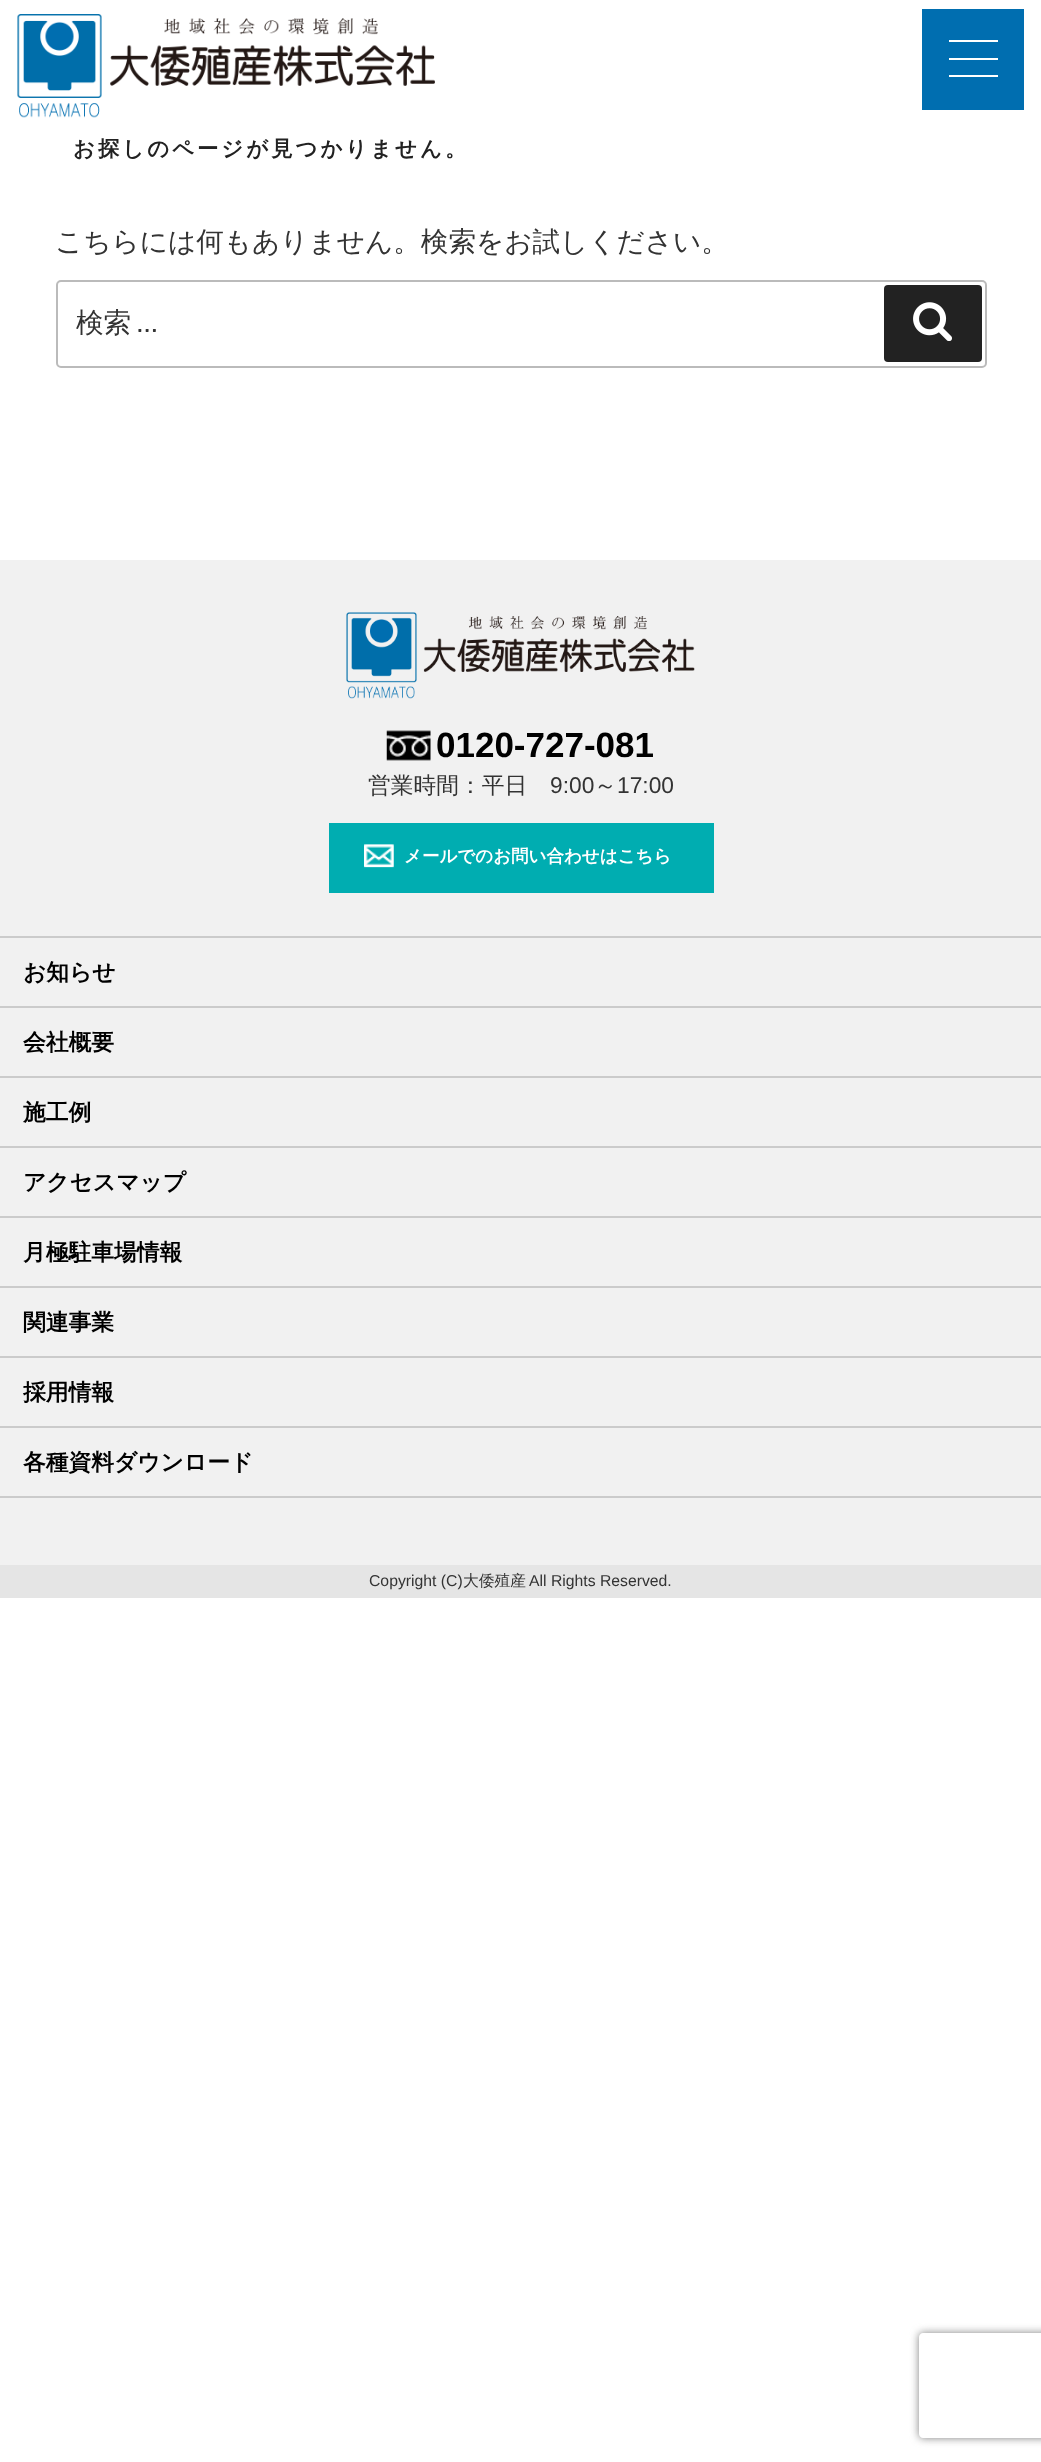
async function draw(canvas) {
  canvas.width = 1041
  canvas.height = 2462
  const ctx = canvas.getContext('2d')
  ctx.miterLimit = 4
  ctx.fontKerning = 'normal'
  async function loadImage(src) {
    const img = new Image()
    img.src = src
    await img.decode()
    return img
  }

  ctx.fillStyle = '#fff'
  ctx.fillRect(0, 0, 1041, 2462)
  ctx.drawImage(await loadImage('image0.png'), 17, 14, 418, 104)
  ctx.fillStyle = '#006eb0'
  ctx.fillRect(922, 9, 102, 101)
  ctx.fillStyle = '#fff'
  ctx.fillRect(949, 40, 49, 2)
  ctx.fillRect(949, 58, 49, 2)
  ctx.fillRect(949, 75, 49, 2)
  ctx.letterSpacing = '3px'
  ctx.font = 'bold 21.4px WenQuanYi Zen Hei'
  ctx.fillStyle = '#222'
  ctx.fillText('お探しのページが見つかりません。', 73, 156)
  ctx.letterSpacing = '0px'
  ctx.font = '500 27.6px WenQuanYi Zen Hei'
  ctx.fillStyle = '#333'
  ctx.fillText('こちらには何もありません。検索をお試しください。', 55, 251)
  ctx.beginPath()
  ctx.roundRect(57, 281, 929, 86, 4)
  ctx.strokeStyle = '#bbb'
  ctx.lineWidth = 2
  ctx.stroke()
  ctx.fillText('検索', 76, 332)
  ctx.font = '27.6px Libre Franklin'
  ctx.fillText('…', 137, 332)
  ctx.fillStyle = '#222'
  ctx.beginPath()
  ctx.roundRect(884, 285, 98, 77, 4)
  ctx.fill()
  ctx.drawImage(await loadImage('image1.png'), 913, 302, 39, 39)
  ctx.fillStyle = '#f1f1f1'
  ctx.fillRect(0, 560, 1041, 1005)
  ctx.drawImage(await loadImage('image2.png'), 346, 612, 349, 87)
  ctx.drawImage(await loadImage('image3.png'), 386, 730, 45, 31)
  ctx.font = 'bold 35px Liberation Sans'
  ctx.fillStyle = '#000'
  ctx.fillText('0120-727-081', 436, 757)
  ctx.font = '500 22.75px WenQuanYi Zen Hei'
  ctx.fillStyle = '#333'
  ctx.fillText('営業時間：平日', 368, 793)
  ctx.font = '22.75px Liberation Sans'
  ctx.fillText('9:00', 550, 793)
  ctx.font = '500 22.75px WenQuanYi Zen Hei'
  ctx.fillText('～', 594, 793)
  ctx.font = '22.75px Liberation Sans'
  ctx.fillText('17:00', 617, 793)
  ctx.fillStyle = '#00adb1'
  ctx.fillRect(329, 823, 385, 70)
  ctx.drawImage(await loadImage('image4.png'), 364, 844, 30, 24)
  ctx.font = 'bold 17.5px WenQuanYi Zen Hei'
  ctx.fillStyle = '#fff'
  ctx.fillText('メールでのお問い合わせはこちら', 404, 862)
  ctx.fillStyle = '#cbcbcb'
  ctx.fillRect(0, 936, 1041, 2)
  ctx.fillRect(0, 1006, 1041, 2)
  ctx.font = 'bold 22.75px WenQuanYi Zen Hei'
  ctx.fillStyle = '#000'
  ctx.fillText('お知らせ', 23, 980)
  ctx.fillStyle = '#cbcbcb'
  ctx.fillRect(0, 1076, 1041, 2)
  ctx.fillStyle = '#000'
  ctx.fillText('会社概要', 23, 1050)
  ctx.fillStyle = '#cbcbcb'
  ctx.fillRect(0, 1146, 1041, 2)
  ctx.fillStyle = '#000'
  ctx.fillText('施工例', 23, 1120)
  ctx.fillStyle = '#cbcbcb'
  ctx.fillRect(0, 1356, 1041, 2)
  ctx.fillRect(0, 1216, 1041, 2)
  ctx.fillStyle = '#000'
  ctx.fillText('アクセスマップ', 23, 1190)
  ctx.fillStyle = '#cbcbcb'
  ctx.fillRect(0, 1286, 1041, 2)
  ctx.fillStyle = '#000'
  ctx.fillText('月極駐車場情報', 23, 1260)
  ctx.fillText('関連事業', 23, 1330)
  ctx.fillStyle = '#cbcbcb'
  ctx.fillRect(0, 1426, 1041, 2)
  ctx.fillStyle = '#000'
  ctx.fillText('採用情報', 23, 1400)
  ctx.fillStyle = '#cbcbcb'
  ctx.fillRect(0, 1496, 1041, 2)
  ctx.fillStyle = '#000'
  ctx.fillText('各種資料ダウンロード', 23, 1470)
  ctx.fillStyle = '#e5e5e5'
  ctx.fillRect(0, 1565, 1041, 33)
  ctx.font = '15.75px Liberation Sans'
  ctx.fillStyle = '#333'
  ctx.fillText('Copyright (C)', 369, 1586)
  ctx.font = '500 15.75px WenQuanYi Zen Hei'
  ctx.fillText('大倭殖産', 463, 1586)
  ctx.font = '15.75px Liberation Sans'
  ctx.fillText('All Rights Reserved.', 529, 1586)
  ctx.save()
  ctx.beginPath()
  ctx.moveTo(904, 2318)
  ctx.lineTo(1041, 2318)
  ctx.lineTo(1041, 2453)
  ctx.lineTo(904, 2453)
  ctx.closePath()
  ctx.moveTo(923, 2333)
  ctx.lineTo(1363, 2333)
  ctx.bezierCurveTo(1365, 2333, 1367, 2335, 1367, 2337)
  ctx.lineTo(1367, 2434)
  ctx.bezierCurveTo(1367, 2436, 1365, 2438, 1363, 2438)
  ctx.lineTo(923, 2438)
  ctx.bezierCurveTo(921, 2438, 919, 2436, 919, 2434)
  ctx.lineTo(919, 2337)
  ctx.bezierCurveTo(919, 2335, 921, 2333, 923, 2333)
  ctx.closePath()
  ctx.clip('evenodd')
  ctx.fillStyle = '#808080'
  ctx.filter = 'blur(4.5px)'
  ctx.beginPath()
  ctx.roundRect(919, 2333, 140, 105, 4)
  ctx.fill()
  ctx.filter = 'none'
  ctx.restore()
}

draw(document.querySelector('canvas'))
